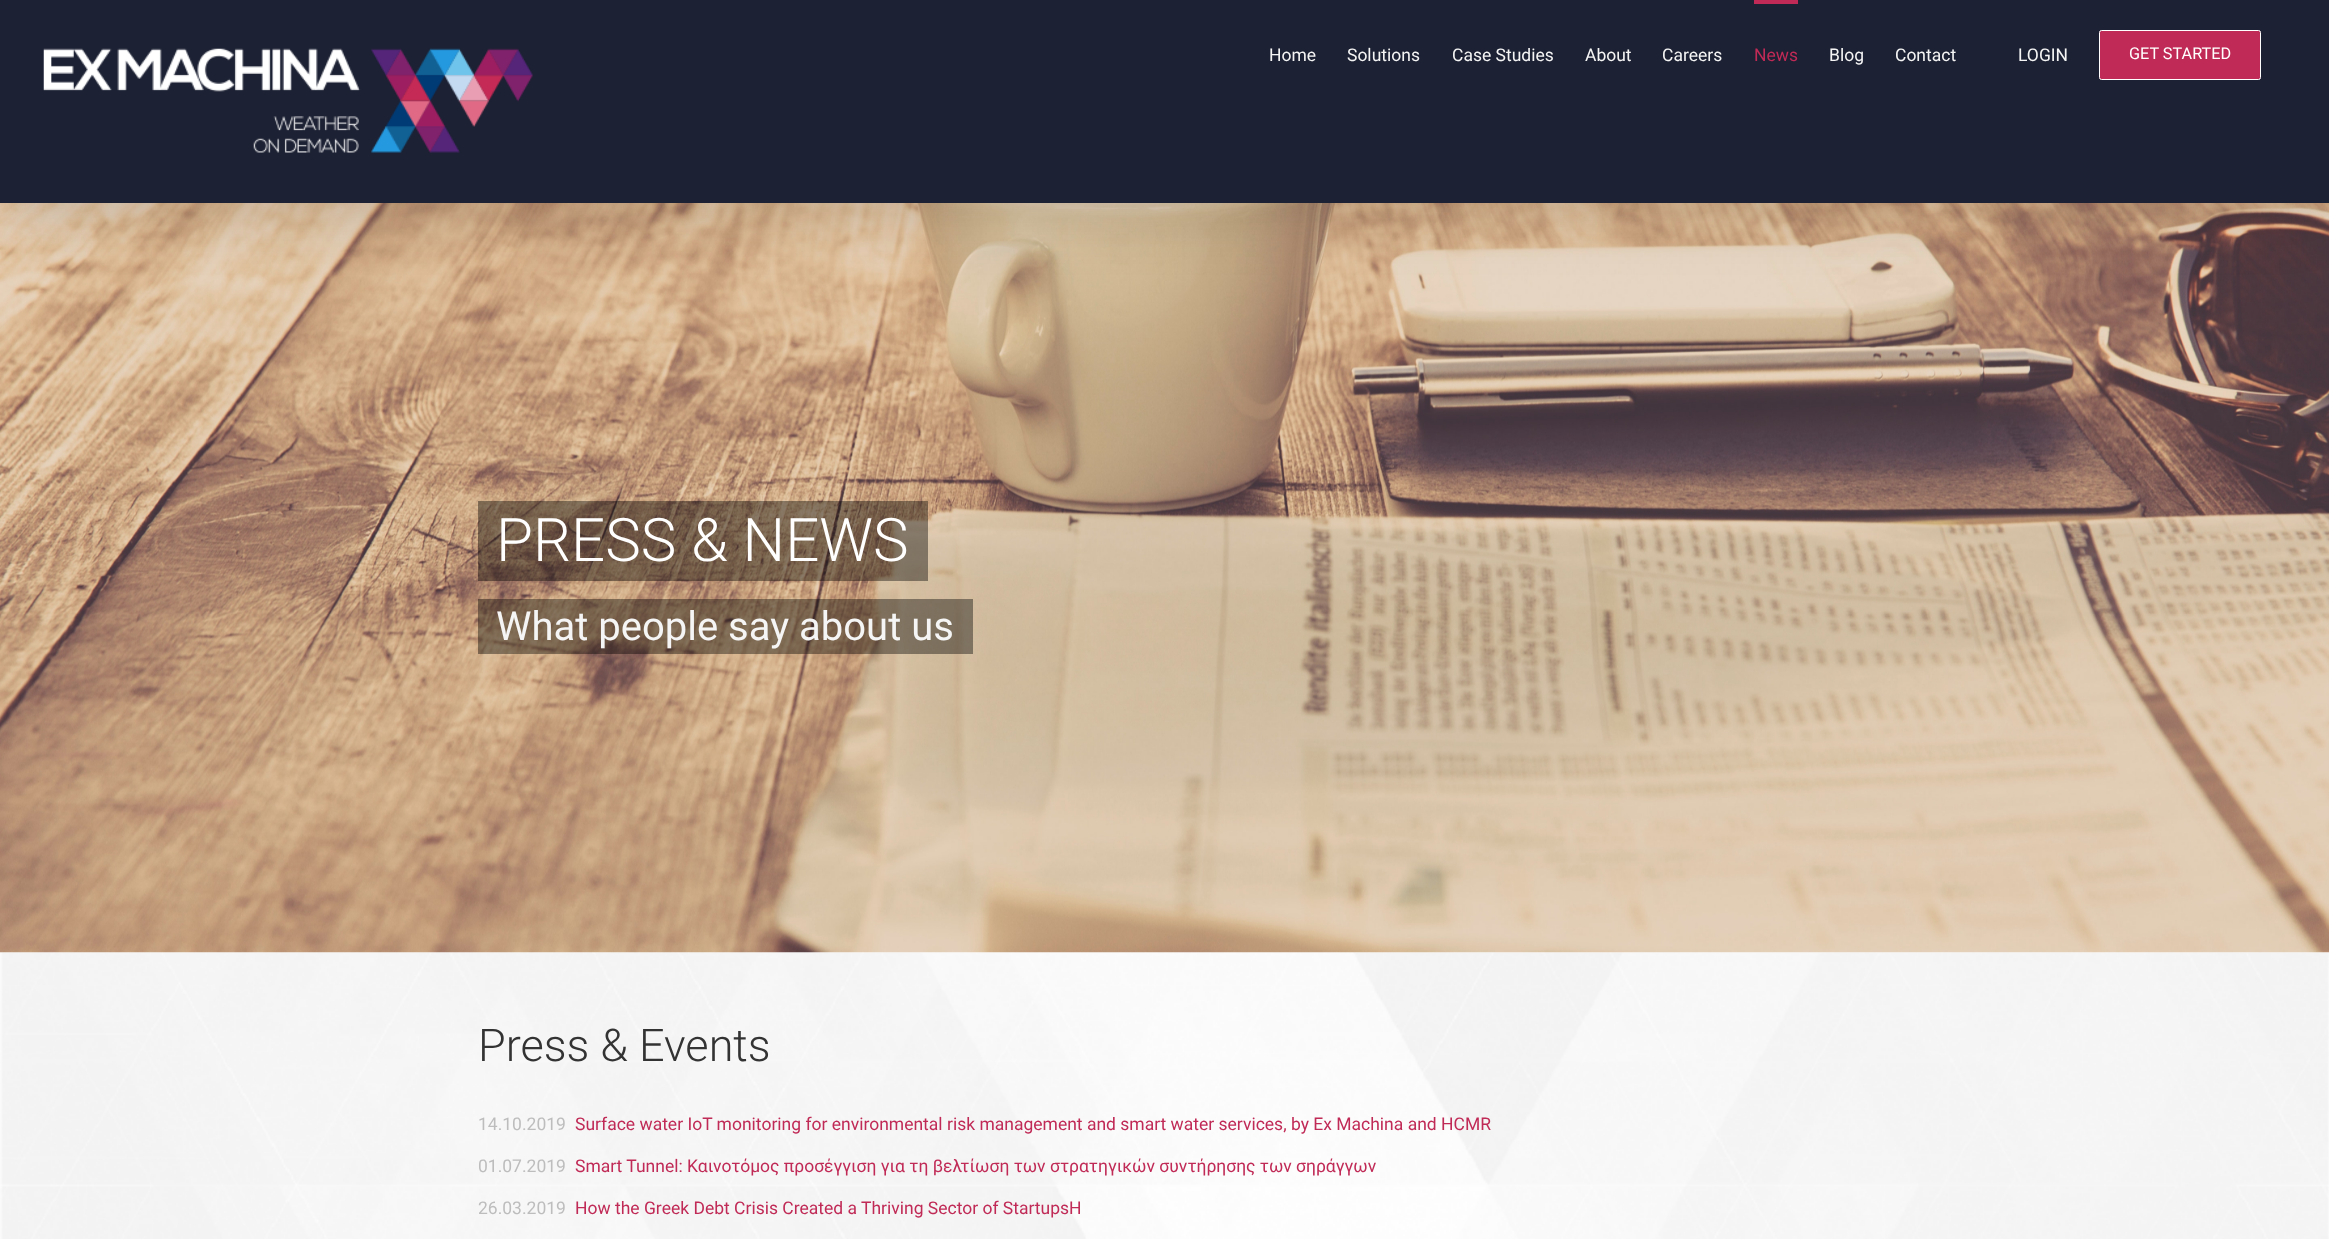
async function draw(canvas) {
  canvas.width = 2329
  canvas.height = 1239
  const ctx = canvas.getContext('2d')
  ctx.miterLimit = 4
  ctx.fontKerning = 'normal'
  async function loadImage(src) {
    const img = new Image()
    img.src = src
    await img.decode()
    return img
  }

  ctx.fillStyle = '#fff'
  ctx.fillRect(0, 0, 2329, 1239)
  ctx.drawImage(await loadImage('image1.png'), 0, 203, 2329, 750)
  ctx.fillStyle = '#00000024'
  ctx.filter = 'blur(31px)'
  ctx.beginPath()
  ctx.rect(3, 15, 2325, 198)
  ctx.fill()
  ctx.filter = 'none'
  ctx.fillStyle = '#1c2133'
  ctx.fillRect(0, 0, 2329, 203)
  ctx.drawImage(await loadImage('image0.png'), 43, 48, 490, 105)
  ctx.font = '17.5px Roboto'
  ctx.fillStyle = '#f5f5f5'
  ctx.fillText('Home', 1269, 61)
  ctx.fillText('Solutions', 1347, 61)
  ctx.fillText('Case Studies', 1452, 61)
  ctx.fillText('About', 1585, 61)
  ctx.fillText('Careers', 1662, 61)
  ctx.fillStyle = '#c02a56'
  ctx.fillRect(1754, 0, 44, 4)
  ctx.fillText('News', 1754, 61)
  ctx.fillStyle = '#f5f5f5'
  ctx.fillText('Blog', 1829, 61)
  ctx.fillText('Contact', 1895, 61)
  ctx.fillText('LOGIN', 2018, 61)
  ctx.fillStyle = '#c02a56'
  ctx.beginPath()
  ctx.roundRect(2099.5, 30.5, 161, 49, 2)
  ctx.fill()
  ctx.strokeStyle = '#fff'
  ctx.stroke()
  ctx.font = '16.25px Roboto'
  ctx.fillStyle = '#fff'
  ctx.fillText('GET STARTED', 2129, 59)
  ctx.fillStyle = '#00000066'
  ctx.fillRect(478, 501, 450, 80)
  ctx.font = '300 60px Roboto'
  ctx.fillStyle = '#fff'
  ctx.fillText('PRESS & NEWS', 496, 561)
  ctx.fillStyle = '#00000066'
  ctx.fillRect(478, 599, 495, 55)
  ctx.font = '40px Roboto'
  ctx.fillStyle = '#f5f5f5'
  ctx.fillText('What people say about us', 496, 640)
  ctx.drawImage(await loadImage('image2.png'), 0, 952, 2329, 287)
  ctx.font = '300 45px Roboto'
  ctx.fillStyle = '#333'
  ctx.fillText('Press & Events', 478, 1061)
  ctx.font = '17.5px Roboto'
  ctx.fillStyle = '#bdbdbd'
  ctx.fillText('14.10.2019', 478, 1130)
  ctx.fillStyle = '#c02a56'
  ctx.fillText('Surface water IoT monitoring for environmental risk management and smart water services, by Ex Machina and HCMR', 575, 1130)
  ctx.fillStyle = '#bdbdbd'
  ctx.fillText('01.07.2019', 478, 1172)
  ctx.fillStyle = '#c02a56'
  ctx.fillText('Smart Tunnel: Καινοτόμος προσέγγιση για τη βελτίωση των στρατηγικών συντήρησης των σηράγγων', 575, 1172)
  ctx.fillStyle = '#bdbdbd'
  ctx.fillText('26.03.2019', 478, 1214)
  ctx.fillStyle = '#c02a56'
  ctx.fillText('How the Greek Debt Crisis Created a Thriving Sector of StartupsΗ', 575, 1214)
}

draw(document.querySelector('canvas'))
